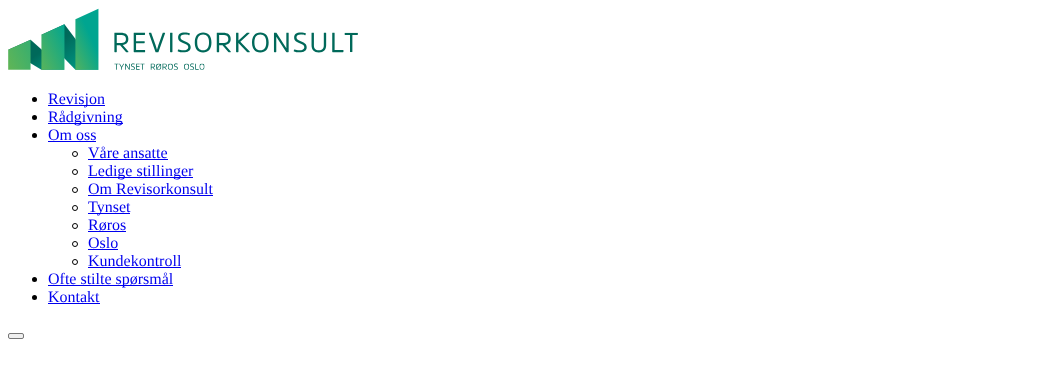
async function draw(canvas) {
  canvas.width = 1056
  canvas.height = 379
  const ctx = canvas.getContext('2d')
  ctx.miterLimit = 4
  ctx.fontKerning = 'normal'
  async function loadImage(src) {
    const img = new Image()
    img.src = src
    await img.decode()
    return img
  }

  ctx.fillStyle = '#fff'
  ctx.fillRect(0, 0, 1056, 379)
  ctx.drawImage(await loadImage('image0.png'), 8, 8, 350, 62)
  ctx.fillStyle = '#000'
  ctx.beginPath()
  ctx.arc(34.5, 99.5, 2.5, 0, 2 * Math.PI)
  ctx.fill()
  ctx.fillStyle = '#00e'
  ctx.fillRect(48, 105, 57, 1)
  ctx.font = '16px Liberation Serif'
  ctx.fillText('Revisjon', 48, 104)
  ctx.fillStyle = '#000'
  ctx.beginPath()
  ctx.arc(34.5, 117.5, 2.5, 0, 2 * Math.PI)
  ctx.fill()
  ctx.fillStyle = '#00e'
  ctx.fillRect(48, 123, 75, 1)
  ctx.fillText('Rådgivning', 48, 122)
  ctx.fillStyle = '#000'
  ctx.beginPath()
  ctx.arc(34.5, 135.5, 2.5, 0, 2 * Math.PI)
  ctx.fill()
  ctx.fillStyle = '#00e'
  ctx.fillText('Om oss', 48, 140)
  ctx.fillRect(48, 141, 48, 1)
  ctx.beginPath()
  ctx.arc(75, 154, 2.5, 0, 2 * Math.PI)
  ctx.strokeStyle = '#000'
  ctx.stroke()
  ctx.fillText('Våre ansatte', 88, 158)
  ctx.fillRect(88, 159, 80, 1)
  ctx.beginPath()
  ctx.arc(75, 172, 2.5, 0, 2 * Math.PI)
  ctx.stroke()
  ctx.fillRect(88, 177, 105, 1)
  ctx.fillText('Ledige stillinger', 88, 176)
  ctx.beginPath()
  ctx.arc(75, 190, 2.5, 0, 2 * Math.PI)
  ctx.stroke()
  ctx.fillText('Om Revisorkonsult', 88, 194)
  ctx.fillRect(88, 195, 125, 1)
  ctx.beginPath()
  ctx.arc(75, 208, 2.5, 0, 2 * Math.PI)
  ctx.stroke()
  ctx.fillRect(88, 213, 42, 1)
  ctx.fillText('Tynset', 88, 212)
  ctx.beginPath()
  ctx.arc(75, 226, 2.5, 0, 2 * Math.PI)
  ctx.stroke()
  ctx.fillText('Røros', 88, 230)
  ctx.fillRect(88, 231, 38, 1)
  ctx.beginPath()
  ctx.arc(75, 244, 2.5, 0, 2 * Math.PI)
  ctx.stroke()
  ctx.fillText('Oslo', 88, 248)
  ctx.fillRect(88, 249, 30, 1)
  ctx.beginPath()
  ctx.arc(75, 262, 2.5, 0, 2 * Math.PI)
  ctx.stroke()
  ctx.fillText('Kundekontroll', 88, 266)
  ctx.fillRect(88, 267, 93, 1)
  ctx.fillStyle = '#000'
  ctx.beginPath()
  ctx.arc(34.5, 279.5, 2.5, 0, 2 * Math.PI)
  ctx.fill()
  ctx.fillStyle = '#00e'
  ctx.fillRect(48, 285, 125, 1)
  ctx.fillText('Ofte stilte spørsmål', 48, 284)
  ctx.fillStyle = '#000'
  ctx.beginPath()
  ctx.arc(34.5, 297.5, 2.5, 0, 2 * Math.PI)
  ctx.fill()
  ctx.fillStyle = '#00e'
  ctx.fillText('Kontakt', 48, 302)
  ctx.fillRect(48, 303, 52, 1)
  ctx.fillStyle = '#efefef'
  ctx.beginPath()
  ctx.roundRect(8.5, 333.5, 15, 5, 1.5)
  ctx.fill()
  ctx.strokeStyle = '#767676'
  ctx.stroke()
}

draw(document.querySelector('canvas'))
